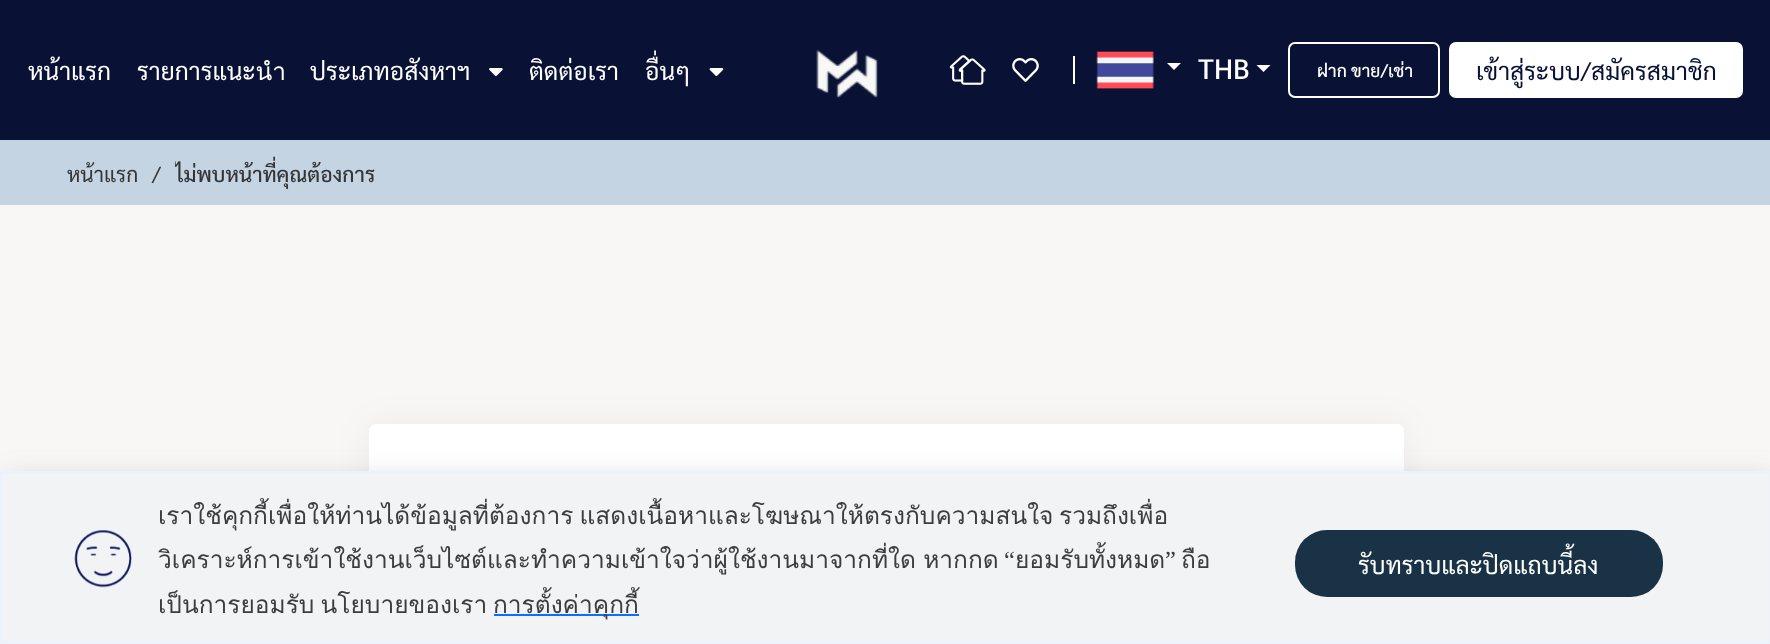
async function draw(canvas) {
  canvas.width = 1770
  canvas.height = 644
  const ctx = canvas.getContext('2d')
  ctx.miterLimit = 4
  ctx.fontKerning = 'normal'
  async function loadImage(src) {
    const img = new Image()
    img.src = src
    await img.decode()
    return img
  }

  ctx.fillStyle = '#c4d4e2'
  ctx.fillRect(0, 0, 1770, 644)
  ctx.fillStyle = '#091235'
  ctx.fillRect(0, 0, 1770, 140)
  ctx.font = '24.5px Sarabun'
  ctx.fillStyle = '#fff'
  ctx.fillText('หน้าแรก', 28, 80)
  ctx.fillText('รายการแนะนำ', 137, 80)
  ctx.fillText('ประเภทอสังหาฯ', 310, 80)
  ctx.drawImage(await loadImage('image0.png'), 489, 68, 14, 8)
  ctx.fillText('ติดต่อเรา', 529, 80)
  ctx.fillText('อื่นๆ', 645, 80)
  ctx.drawImage(await loadImage('image1.png'), 709, 68, 15, 8)
  ctx.drawImage(await loadImage('image2.png'), 816, 50, 62, 48)
  ctx.drawImage(await loadImage('image3.png'), 949, 55, 37, 30)
  ctx.fillRect(1073, 56, 2, 28)
  ctx.drawImage(await loadImage('image4.png'), 1012, 58, 27, 24)
  ctx.drawImage(await loadImage('image5.png'), 1096, 51, 58, 38)
  ctx.beginPath()
  ctx.moveTo(1167, 63)
  ctx.lineTo(1181, 63)
  ctx.lineTo(1174, 70)
  ctx.closePath()
  ctx.fill()
  ctx.font = '500 28px Sarabun'
  ctx.fillText('THB', 1198, 79)
  ctx.beginPath()
  ctx.moveTo(1256.5, 65)
  ctx.lineTo(1270.5, 65)
  ctx.lineTo(1263.5, 72)
  ctx.closePath()
  ctx.fill()
  ctx.beginPath()
  ctx.roundRect(1289, 43, 150, 54, 6)
  ctx.strokeStyle = '#fff'
  ctx.lineWidth = 2
  ctx.stroke()
  ctx.font = '500 17.5px Sarabun'
  ctx.fillText('ฝาก ขาย/เช่า', 1317, 77)
  ctx.beginPath()
  ctx.roundRect(1449, 42, 294, 56, 7)
  ctx.fill()
  ctx.font = '24.5px Sarabun'
  ctx.fillStyle = '#091235'
  ctx.fillText('เข้าสู่ระบบ/สมัครสมาชิก', 1476, 80)
  ctx.font = '21px Sarabun'
  ctx.fillStyle = '#353535'
  ctx.fillText('หน้าแรก', 67, 182)
  ctx.fillText('/', 152, 182)
  ctx.save()
  ctx.beginPath()
  ctx.rect(175, 154, 214, 35)
  ctx.clip()
  ctx.font = '500 21px Sarabun'
  ctx.fillText('ไม่พบหน้าที่คุณต้องการ', 175, 182)
  ctx.restore()
  ctx.fillStyle = '#f9f7f6'
  ctx.fillRect(0, 205, 1770, 266)
  ctx.fillStyle = '#0000000d'
  ctx.filter = 'blur(17.5px)'
  ctx.beginPath()
  ctx.roundRect(369, 424, 1035, 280, 7)
  ctx.fill()
  ctx.filter = 'none'
  ctx.fillStyle = '#fff'
  ctx.beginPath()
  ctx.roundRect(369, 424, 1035, 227, 7)
  ctx.fill()
  ctx.fillStyle = '#384b6c33'
  ctx.filter = 'blur(14px)'
  ctx.beginPath()
  ctx.rect(4, 478, 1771, 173)
  ctx.fill()
  ctx.filter = 'none'
  ctx.fillStyle = '#f1f3f4'
  ctx.beginPath()
  ctx.rect(1, 472, 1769, 171)
  ctx.fill()
  ctx.strokeStyle = '#ebf2fe'
  ctx.stroke()
  ctx.drawImage(await loadImage('image6.png'), 74, 530, 58, 58)
  ctx.wordSpacing = '-2px'
  ctx.font = '24.5px Loma'
  ctx.fillStyle = '#3d3d3d'
  ctx.fillText('เราใช้คุกกี้เพื่อให้ท่านได้ข้อมูลที่ต้องการ แสดงเนื้อหาและโฆษณาให้ตรงกับความสนใจ', 158, 524)
  ctx.wordSpacing = '0px'
  ctx.fillText('รวมถึงเพื่อ', 1059, 524)
  ctx.wordSpacing = '-1px'
  ctx.fillText('วิเคราะห์การเข้าใช้งานเว็บไซต์และทำความเข้าใจว่าผู้ใช้งานมาจากที่ใด หากกด', 158, 568)
  ctx.wordSpacing = '0px'
  ctx.font = '24.5px Liberation Serif'
  ctx.fillText('“', 1004, 568)
  ctx.font = '24.5px Loma'
  ctx.fillText('ยอมรับทั้งหมด', 1015, 568)
  ctx.font = '24.5px Liberation Serif'
  ctx.fillText('”', 1165, 568)
  ctx.font = '24.5px Loma'
  ctx.fillText('ถือ', 1181, 568)
  ctx.wordSpacing = '-2px'
  ctx.fillText('เป็นการยอมรับ นโยบายของเรา', 158, 613)
  ctx.fillStyle = '#0d6efd'
  ctx.fillRect(494, 614, 145, 2)
  ctx.wordSpacing = '0px'
  ctx.fillStyle = '#3d3d3d'
  ctx.fillText('การตั้งค่าคุกกี้', 493, 613)
  ctx.fillStyle = '#193245'
  ctx.beginPath()
  ctx.roundRect(1295, 530, 368, 67, 32)
  ctx.fill()
  ctx.font = '24.5px Sarabun'
  ctx.fillStyle = '#fff'
  ctx.fillText('รับทราบและปิดแถบนี้ลง', 1358, 574)
}

draw(document.querySelector('canvas'))
